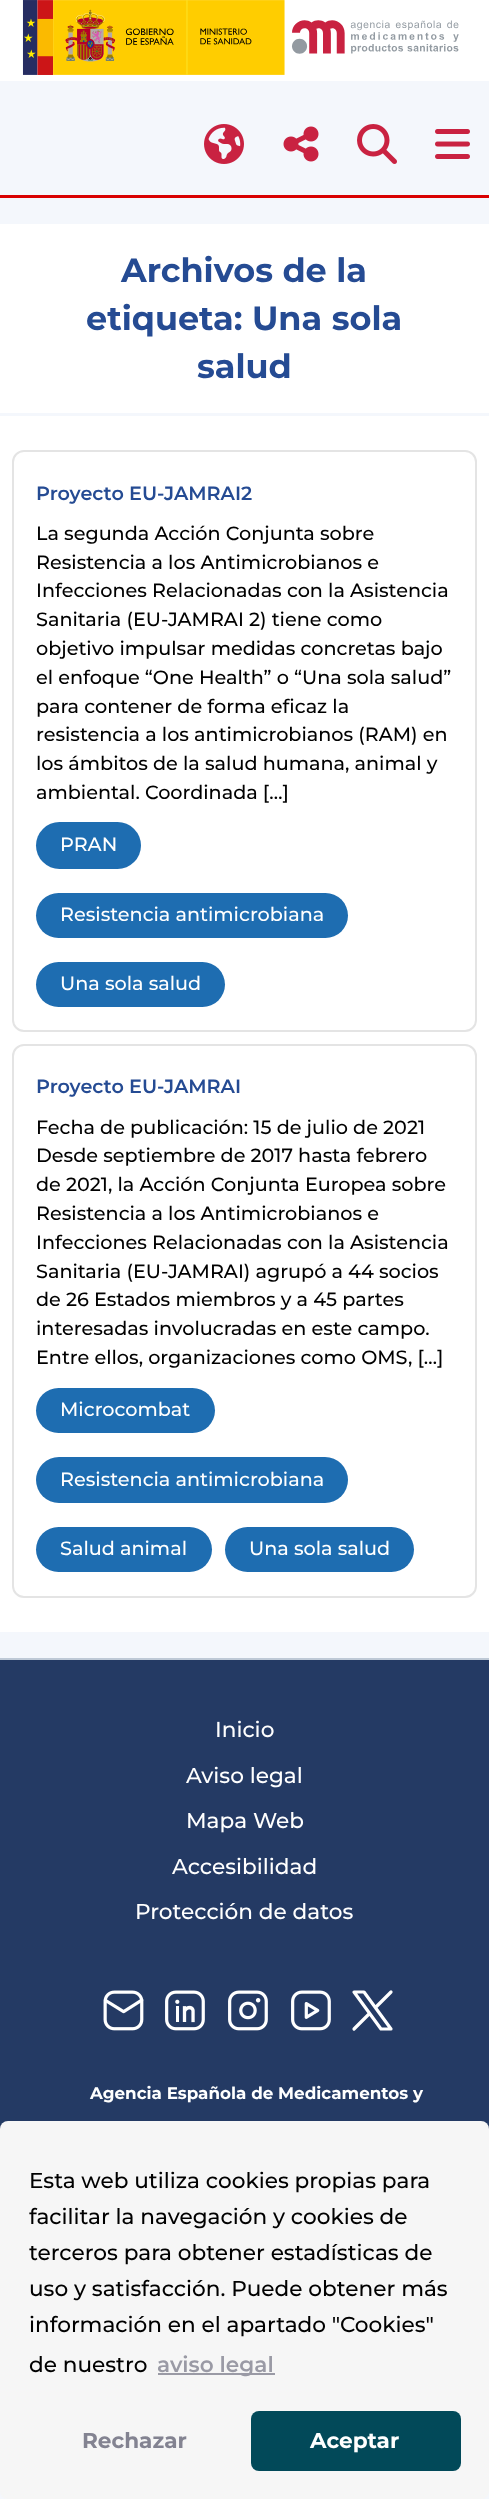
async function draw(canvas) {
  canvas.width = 489
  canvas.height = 2499
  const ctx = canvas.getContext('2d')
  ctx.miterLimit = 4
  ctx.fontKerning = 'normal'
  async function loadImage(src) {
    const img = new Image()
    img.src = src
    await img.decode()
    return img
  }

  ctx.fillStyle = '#f4f7fc'
  ctx.fillRect(0, 0, 489, 2499)
  ctx.fillStyle = '#fff'
  ctx.fillRect(0, 0, 489, 81)
  ctx.drawImage(await loadImage('image0.png'), 22, 0, 437, 75)
  ctx.fillStyle = '#d90001'
  ctx.fillRect(0, 195, 489, 3)
  ctx.drawImage(await loadImage('image1.png'), 204, 124, 40, 40)
  ctx.drawImage(await loadImage('image2.png'), 283, 126, 36, 36)
  ctx.drawImage(await loadImage('image3.png'), 357, 124, 40, 40)
  ctx.drawImage(await loadImage('image4.png'), 435, 129, 35, 30)
  ctx.strokeStyle = '#fff'
  ctx.lineWidth = 23
  ctx.strokeRect(-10.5, 235.5, 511, 166)
  ctx.fillStyle = '#fff'
  ctx.fillRect(1, 247, 488, 143)
  ctx.font = 'bold 33.5px Montserrat'
  ctx.fillStyle = '#254b93'
  ctx.fillText('Archivos de la', 121, 282)
  ctx.fillText('etiqueta: Una sola', 86, 330)
  ctx.fillText('salud', 197, 378)
  ctx.strokeRect(-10.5, 427.5, 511, 1193)
  ctx.fillStyle = '#fff'
  ctx.fillRect(1, 439, 488, 1170)
  ctx.fillStyle = '#1e6db1'
  ctx.beginPath()
  ctx.roundRect(36, 822, 105, 47, 23.5)
  ctx.fill()
  ctx.beginPath()
  ctx.roundRect(36, 893, 312, 45, 22.5)
  ctx.fill()
  ctx.beginPath()
  ctx.roundRect(36, 962, 189, 45, 22.5)
  ctx.fill()
  ctx.beginPath()
  ctx.roundRect(13, 451, 463, 580, 11)
  ctx.strokeStyle = '#e4e4e4'
  ctx.lineWidth = 2
  ctx.stroke()
  ctx.font = '600 19.2px Montserrat'
  ctx.fillStyle = '#254b93'
  ctx.fillText('Proyecto EU-JAMRAI2', 36, 500)
  ctx.font = '500 19.2px Montserrat'
  ctx.fillStyle = '#000'
  ctx.fillText('La segunda Acción Conjunta sobre', 36, 540)
  ctx.fillText('Resistencia a los Antimicrobianos e', 36, 569)
  ctx.fillText('Infecciones Relacionadas con la Asistencia', 36, 597)
  ctx.fillText('Sanitaria (EU-JAMRAI 2) tiene como', 36, 626)
  ctx.fillText('objetivo impulsar medidas concretas bajo', 36, 655)
  ctx.fillText('el enfoque “One Health” o “Una sola salud”', 36, 684)
  ctx.fillText('para contener de forma eficaz la', 36, 713)
  ctx.fillText('resistencia a los antimicrobianos (RAM) en', 36, 741)
  ctx.fillText('los ámbitos de la salud humana, animal y', 36, 770)
  ctx.fillText('ambiental. Coordinada […]', 36, 799)
  ctx.fillStyle = '#fff'
  ctx.fillText('PRAN', 60, 851)
  ctx.fillText('Resistencia antimicrobiana', 60, 921)
  ctx.fillText('Una sola salud', 60, 990)
  ctx.fillStyle = '#1e6db1'
  ctx.beginPath()
  ctx.roundRect(36, 1388, 179, 45, 22.5)
  ctx.fill()
  ctx.beginPath()
  ctx.roundRect(36, 1457, 312, 46, 23)
  ctx.fill()
  ctx.beginPath()
  ctx.roundRect(36, 1527, 176, 45, 22.5)
  ctx.fill()
  ctx.beginPath()
  ctx.roundRect(225, 1527, 189, 45, 22.5)
  ctx.fill()
  ctx.beginPath()
  ctx.roundRect(13, 1045, 463, 552, 11)
  ctx.stroke()
  ctx.font = '600 19.2px Montserrat'
  ctx.fillStyle = '#254b93'
  ctx.fillText('Proyecto EU-JAMRAI', 36, 1093)
  ctx.font = '500 19.2px Montserrat'
  ctx.fillStyle = '#000'
  ctx.fillText('Fecha de publicación: 15 de julio de 2021', 36, 1134)
  ctx.fillText('Desde septiembre de 2017 hasta febrero', 36, 1162)
  ctx.fillText('de 2021, la Acción Conjunta Europea sobre', 36, 1191)
  ctx.fillText('Resistencia a los Antimicrobianos e', 36, 1220)
  ctx.fillText('Infecciones Relacionadas con la Asistencia', 36, 1249)
  ctx.fillText('Sanitaria (EU-JAMRAI) agrupó a 44 socios', 36, 1278)
  ctx.fillText('de 26 Estados miembros y a 45 partes', 36, 1306)
  ctx.fillText('interesadas involucradas en este campo.', 36, 1335)
  ctx.fillText('Entre ellos, organizaciones como OMS, […]', 36, 1364)
  ctx.fillStyle = '#fff'
  ctx.fillText('Microcombat', 60, 1416)
  ctx.fillText('Resistencia antimicrobiana', 60, 1486)
  ctx.fillText('Salud animal', 60, 1555)
  ctx.fillText('Una sola salud', 249, 1555)
  ctx.fillStyle = '#243a64'
  ctx.fillRect(0, 1660, 489, 469)
  ctx.fillStyle = '#bec9d6'
  ctx.fillRect(0, 1658, 489, 2)
  ctx.font = '500 21.6px Montserrat'
  ctx.fillStyle = '#fff'
  ctx.fillText('Inicio', 215, 1737)
  ctx.fillText('Aviso legal', 186, 1783)
  ctx.fillText('Mapa Web', 186, 1828)
  ctx.fillText('Accesibilidad', 172, 1874)
  ctx.fillText('Protección de datos', 135, 1919)
  ctx.drawImage(await loadImage('image5.png'), 103, 1990, 41, 41)
  ctx.drawImage(await loadImage('image6.png'), 165, 1990, 40, 41)
  ctx.drawImage(await loadImage('image7.png'), 228, 1990, 40, 41)
  ctx.drawImage(await loadImage('image8.png'), 291, 1990, 40, 41)
  ctx.beginPath()
  ctx.moveTo(354, 1992)
  ctx.lineTo(381, 2029)
  ctx.lineTo(391, 2029)
  ctx.lineTo(364, 1992)
  ctx.closePath()
  ctx.moveTo(354, 2029)
  ctx.lineTo(369.5, 2013.5)
  ctx.moveTo(375.5, 2007.5)
  ctx.lineTo(391, 1992)
  ctx.strokeStyle = '#fff'
  ctx.lineWidth = 3.2
  ctx.lineCap = 'round'
  ctx.lineJoin = 'round'
  ctx.stroke()
  ctx.font = 'bold 16.75px Montserrat'
  ctx.fillText('Agencia Española de Medicamentos y', 90, 2099)
  ctx.fillStyle = '#f6f6f6'
  ctx.beginPath()
  ctx.roundRect(0, 2121, 489, 378, 8)
  ctx.fill()
  ctx.font = '500 21.6px Montserrat'
  ctx.fillStyle = '#000'
  ctx.fillText('Esta web utiliza cookies propias para', 29, 2188)
  ctx.fillText('facilitar la navegación y cookies de', 29, 2224)
  ctx.fillText('terceros para obtener estadísticas de', 29, 2260)
  ctx.fillText('uso y satisfacción. Puede obtener más', 29, 2296)
  ctx.fillText('información en el apartado "Cookies"', 29, 2332)
  ctx.fillText('de nuestro', 29, 2372)
  ctx.fillStyle = '#9a9aa5'
  ctx.fillRect(158, 2373, 117, 2)
  ctx.font = '600 21.6px Montserrat'
  ctx.fillText('aviso legal', 157, 2372)
  ctx.font = 'bold 21.6px Montserrat'
  ctx.fillStyle = '#838391'
  ctx.fillText('Rechazar', 82, 2448)
  ctx.fillStyle = '#024959'
  ctx.beginPath()
  ctx.roundRect(251, 2411, 210, 60, 8)
  ctx.fill()
  ctx.fillStyle = '#fff'
  ctx.fillText('Aceptar', 310, 2448)
}

draw(document.querySelector('canvas'))
